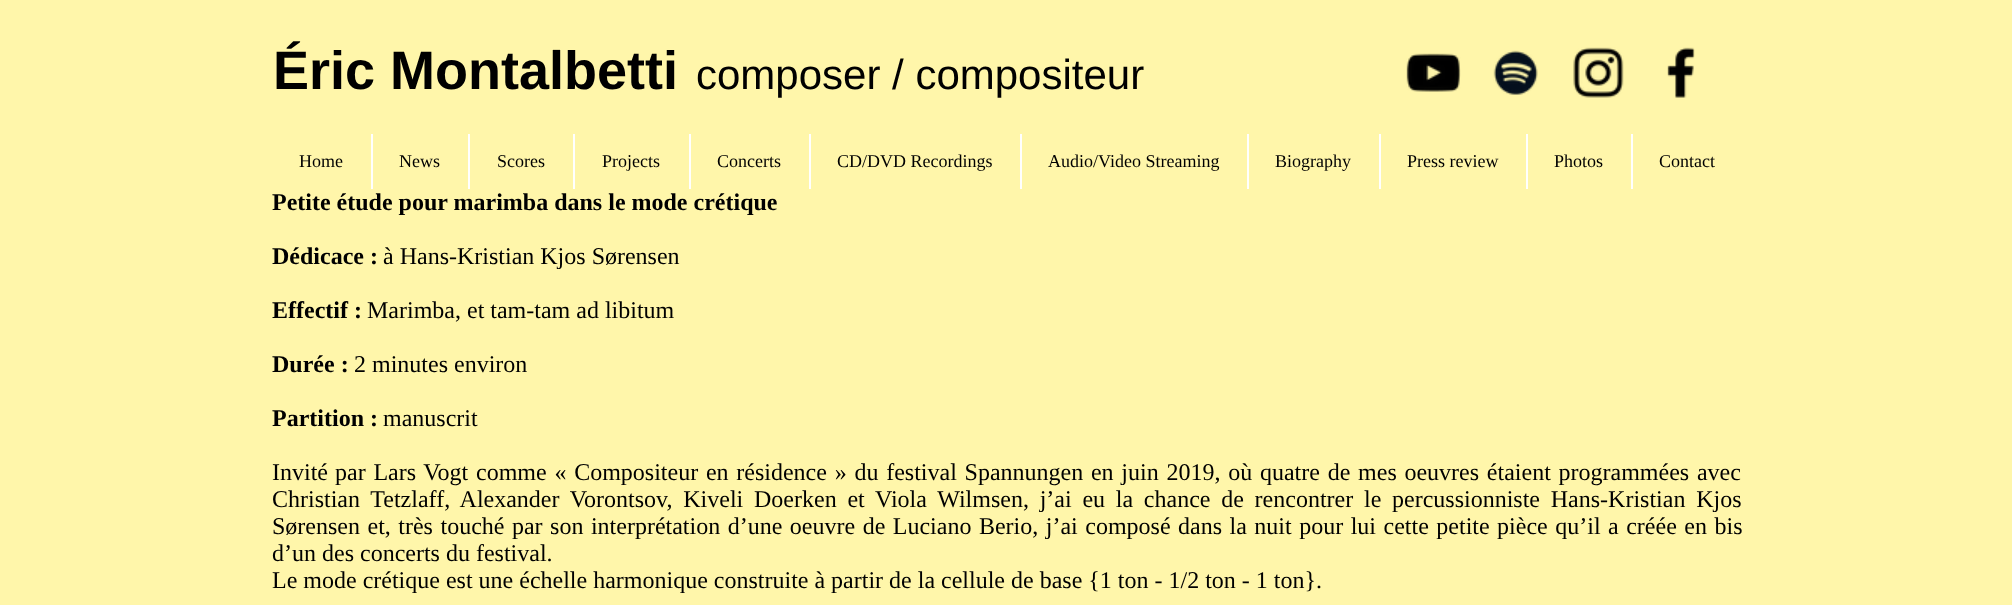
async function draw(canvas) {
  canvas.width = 2012
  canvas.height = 605
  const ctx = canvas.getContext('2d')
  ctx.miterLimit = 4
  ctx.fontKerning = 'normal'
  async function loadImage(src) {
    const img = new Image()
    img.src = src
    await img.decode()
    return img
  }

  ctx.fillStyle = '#fff6aa'
  ctx.fillRect(0, 0, 2012, 605)
  ctx.font = 'bold 54px Liberation Sans'
  ctx.fillStyle = '#000'
  ctx.fillText('Éric Montalbetti', 273, 89)
  ctx.font = '42px Liberation Sans'
  ctx.fillText('composer / compositeur', 696, 89)
  ctx.drawImage(await loadImage('image0.png'), 1406, 53, 55, 39)
  ctx.drawImage(await loadImage('image1.png'), 1493, 50, 45, 45)
  ctx.drawImage(await loadImage('image2.png'), 1573, 47, 51, 51)
  ctx.drawImage(await loadImage('image3.png'), 1667, 47, 28, 51)
  ctx.font = '18px Liberation Serif'
  ctx.fillText('Home', 299, 167)
  ctx.fillStyle = '#fff'
  ctx.fillRect(371, 134, 2, 55)
  ctx.fillStyle = '#000'
  ctx.fillText('News', 399, 167)
  ctx.fillStyle = '#fff'
  ctx.fillRect(468, 134, 2, 55)
  ctx.fillStyle = '#000'
  ctx.fillText('Scores', 497, 167)
  ctx.fillStyle = '#fff'
  ctx.fillRect(573, 134, 2, 55)
  ctx.fillStyle = '#000'
  ctx.fillText('Projects', 602, 167)
  ctx.fillStyle = '#fff'
  ctx.fillRect(689, 134, 2, 55)
  ctx.fillStyle = '#000'
  ctx.fillText('Concerts', 717, 167)
  ctx.fillStyle = '#fff'
  ctx.fillRect(809, 134, 2, 55)
  ctx.fillStyle = '#000'
  ctx.fillText('CD/DVD Recordings', 837, 167)
  ctx.fillStyle = '#fff'
  ctx.fillRect(1020, 134, 2, 55)
  ctx.fillStyle = '#000'
  ctx.fillText('Audio/Video Streaming', 1048, 167)
  ctx.fillStyle = '#fff'
  ctx.fillRect(1247, 134, 2, 55)
  ctx.fillStyle = '#000'
  ctx.fillText('Biography', 1275, 167)
  ctx.fillStyle = '#fff'
  ctx.fillRect(1379, 134, 2, 55)
  ctx.fillStyle = '#000'
  ctx.fillText('Press review', 1407, 167)
  ctx.fillStyle = '#fff'
  ctx.fillRect(1526, 134, 2, 55)
  ctx.fillStyle = '#000'
  ctx.fillText('Photos', 1554, 167)
  ctx.fillStyle = '#fff'
  ctx.fillRect(1631, 134, 2, 55)
  ctx.fillStyle = '#000'
  ctx.fillText('Contact', 1659, 167)
  ctx.font = 'bold 24px Liberation Serif'
  ctx.fillText('Petite étude pour marimba dans le mode crétique', 272, 210)
  ctx.fillText('Dédicace :', 272, 264)
  ctx.font = '24px Liberation Serif'
  ctx.fillText('à Hans-Kristian Kjos Sørensen', 383, 264)
  ctx.font = 'bold 24px Liberation Serif'
  ctx.fillText('Effectif :', 272, 318)
  ctx.font = '24px Liberation Serif'
  ctx.fillText('Marimba, et tam-tam ad libitum', 367, 318)
  ctx.font = 'bold 24px Liberation Serif'
  ctx.fillText('Durée :', 272, 372)
  ctx.font = '24px Liberation Serif'
  ctx.fillText('2 minutes environ', 354, 372)
  ctx.font = 'bold 24px Liberation Serif'
  ctx.fillText('Partition :', 272, 426)
  ctx.font = '24px Liberation Serif'
  ctx.fillText('manuscrit', 383, 426)
  ctx.fillText('Invité', 272, 480)
  ctx.wordSpacing = '1.75px'
  ctx.fillText('par Lars Vogt comme « Compositeur en résidence » du festival Spannungen en juin 2019, où quatre de mes oeuvres étaient programmées avec', 335, 480)
  ctx.wordSpacing = '4.75px'
  ctx.fillText('Christian Tetzlaff, Alexander Vorontsov, Kiveli Doerken et Viola Wilmsen, j’ai eu la chance de rencontrer le percussionniste Hans-Kristian Kjos', 272, 507)
  ctx.wordSpacing = '1.5px'
  ctx.fillText('Sørensen et, très touché par son interprétation d’une oeuvre de Luciano Berio, j’ai composé dans la nuit pour lui cette petite pièce qu’il a créée en bis', 272, 534)
  ctx.wordSpacing = '0px'
  ctx.fillText('d’un des concerts du festival.', 272, 561)
  ctx.fillText('Le mode crétique est une échelle harmonique construite à partir de la cellule de base {1 ton - 1/2 ton - 1 ton}.', 272, 588)
}

draw(document.querySelector('canvas'))
